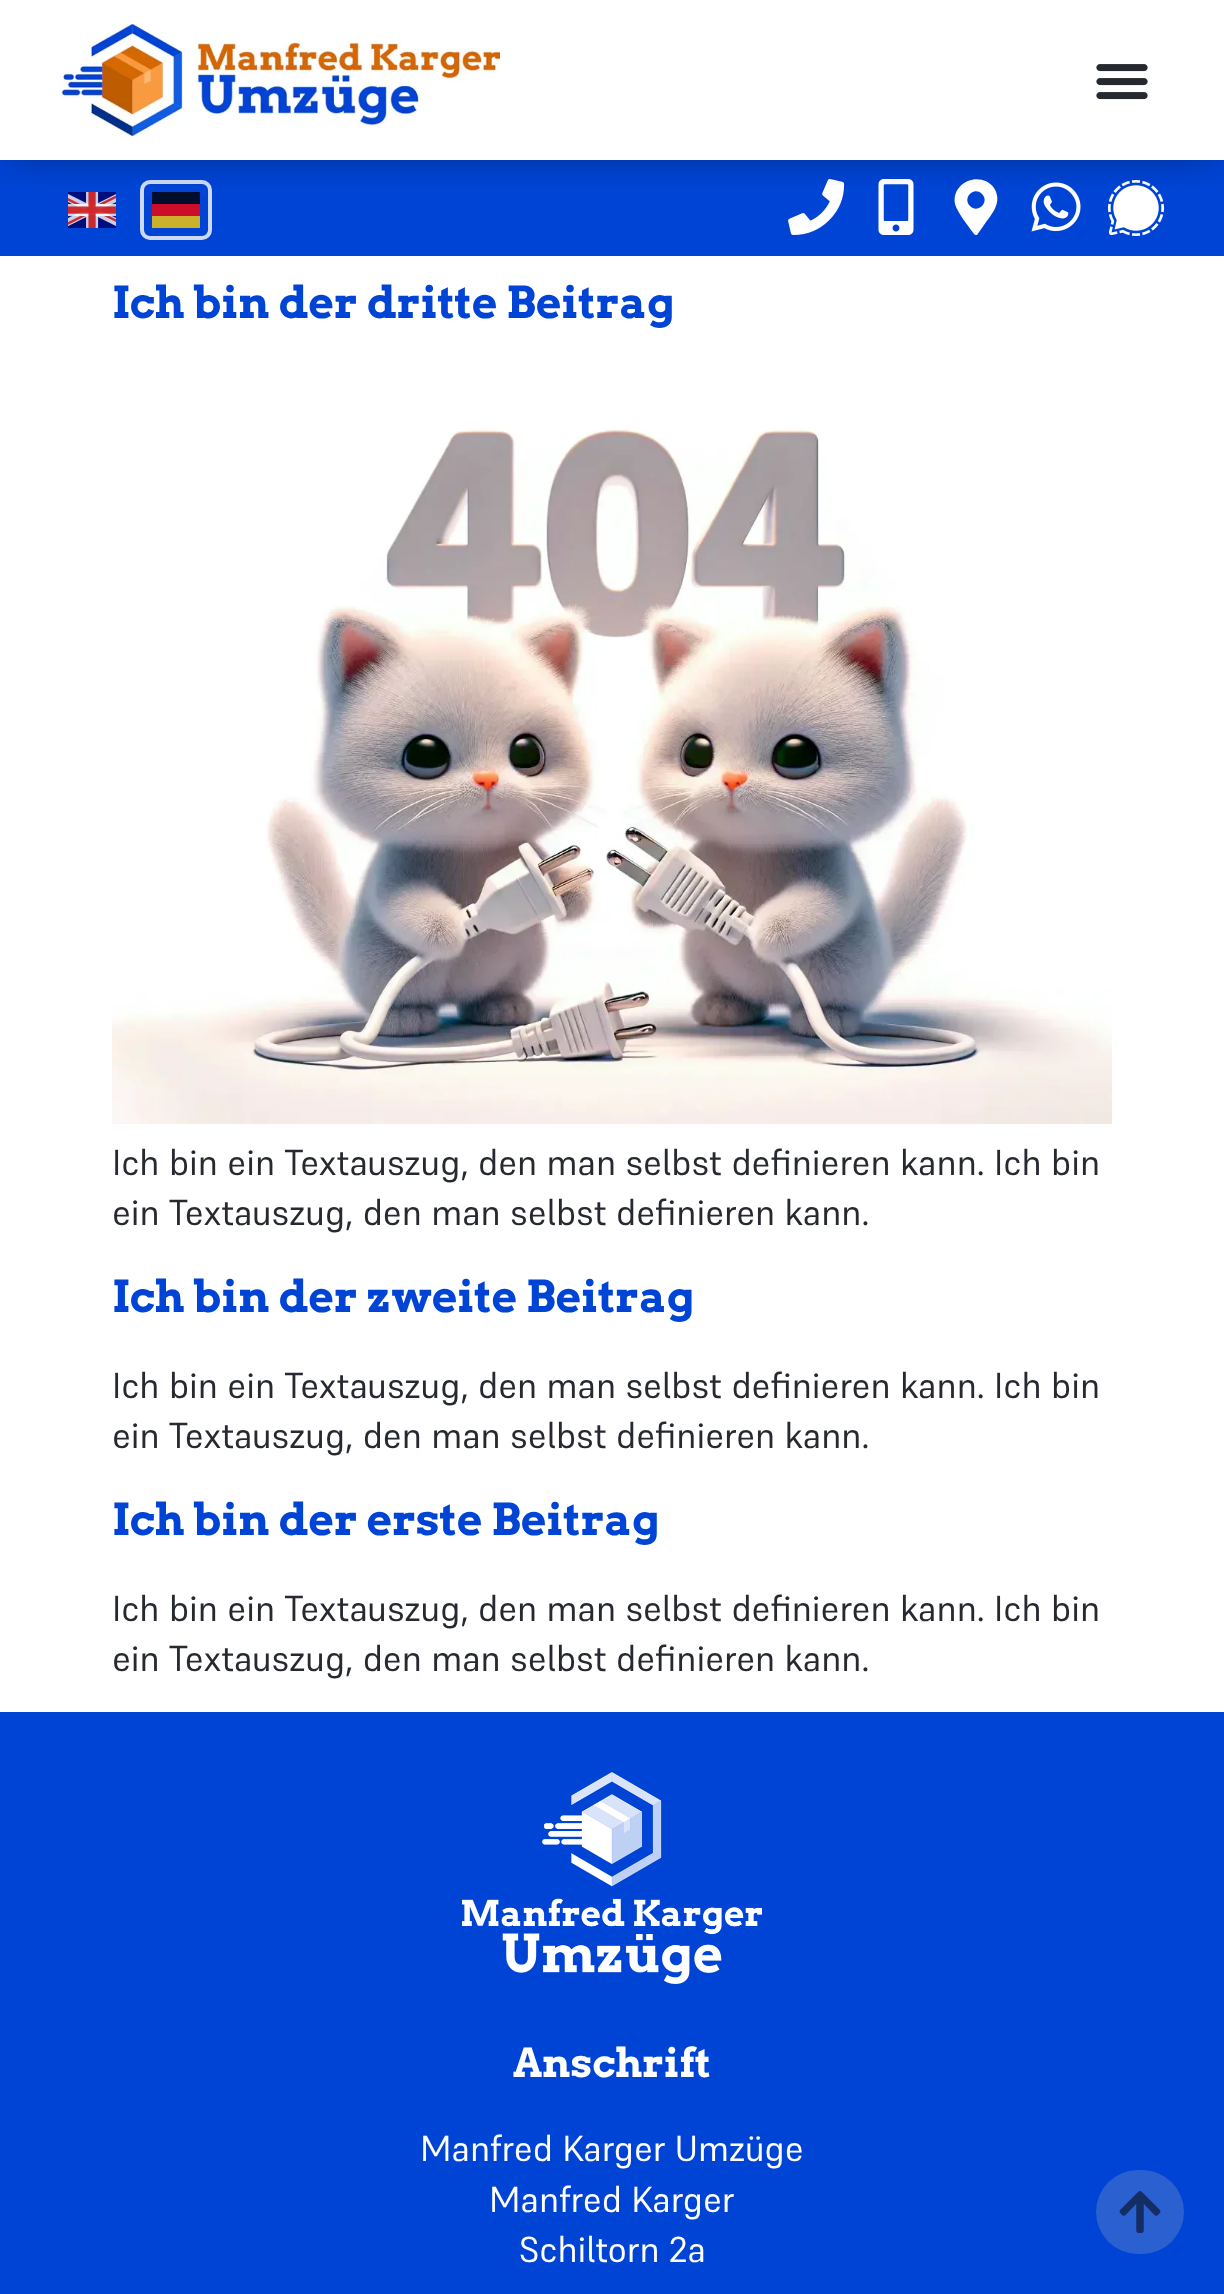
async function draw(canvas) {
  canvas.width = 1224
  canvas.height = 2294
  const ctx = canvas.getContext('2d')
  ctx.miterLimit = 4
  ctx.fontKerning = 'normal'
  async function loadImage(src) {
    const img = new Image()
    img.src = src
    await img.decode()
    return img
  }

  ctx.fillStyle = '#fff'
  ctx.fillRect(0, 0, 1224, 2294)
  ctx.fillStyle = '#0044d5'
  ctx.fillRect(0, 160, 1224, 96)
  ctx.drawImage(await loadImage('image2.png'), 68, 192, 48, 36)
  ctx.beginPath()
  ctx.roundRect(142, 182, 68, 56, 8)
  ctx.strokeStyle = '#ccdaf7'
  ctx.lineWidth = 4
  ctx.stroke()
  ctx.fillStyle = '#000e2b'
  ctx.fillRect(152, 192, 48, 12)
  ctx.fillStyle = '#cc0e2b'
  ctx.fillRect(152, 204, 48, 12)
  ctx.drawImage(await loadImage('image3.png'), 788, 179, 57, 56)
  ctx.drawImage(await loadImage('image4.png'), 878, 179, 36, 56)
  ctx.fillStyle = '#fff'
  ctx.beginPath()
  ctx.moveTo(974, 234)
  ctx.bezierCurveTo(969, 227, 957, 212, 955, 204)
  ctx.bezierCurveTo(951, 182, 981, 170, 994, 188)
  ctx.bezierCurveTo(1003, 202, 992, 214, 984, 225)
  ctx.lineTo(977, 235)
  ctx.bezierCurveTo(976, 235, 975, 235, 974, 234)
  ctx.closePath()
  ctx.moveTo(970, 206)
  ctx.bezierCurveTo(978, 214, 990, 202, 982, 194)
  ctx.bezierCurveTo(974, 186, 962, 198, 970, 206)
  ctx.closePath()
  ctx.fill()
  ctx.drawImage(await loadImage('image5.png'), 1031, 182, 50, 50)
  ctx.drawImage(await loadImage('image6.png'), 1108, 180, 56, 56)
  ctx.save()
  ctx.beginPath()
  ctx.rect(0, 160, 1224, 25)
  ctx.clip()
  ctx.fillStyle = '#00000080'
  ctx.filter = 'blur(20px)'
  ctx.beginPath()
  ctx.rect(10, 10, 1204, 140)
  ctx.fill()
  ctx.filter = 'none'
  ctx.restore()
  ctx.drawImage(await loadImage('image0.png'), 60, 24, 440, 113)
  ctx.drawImage(await loadImage('image1.png'), 1096, 64, 52, 36)
  ctx.fillStyle = '#ccb12b'
  ctx.fillRect(152, 216, 48, 12)
  ctx.font = 'bold 44px Arvo'
  ctx.fillStyle = '#0044d5'
  ctx.fillText('Ich bin der dritte Beitrag', 112, 318)
  ctx.drawImage(await loadImage('image7.png'), 112, 427, 1000, 697)
  ctx.font = '36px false'
  ctx.fillStyle = '#272931'
  ctx.fillText('Ich bin ein Textauszug, den man selbst definieren kann. Ich bin', 112, 1175)
  ctx.fillText('ein Textauszug, den man selbst definieren kann.', 112, 1225)
  ctx.font = 'bold 44px Arvo'
  ctx.fillStyle = '#0044d5'
  ctx.fillText('Ich bin der zweite Beitrag', 112, 1312)
  ctx.font = '36px false'
  ctx.fillStyle = '#272931'
  ctx.fillText('Ich bin ein Textauszug, den man selbst definieren kann. Ich bin', 112, 1398)
  ctx.fillText('ein Textauszug, den man selbst definieren kann.', 112, 1448)
  ctx.font = 'bold 44px Arvo'
  ctx.fillStyle = '#0044d5'
  ctx.fillText('Ich bin der erste Beitrag', 112, 1535)
  ctx.font = '36px false'
  ctx.fillStyle = '#272931'
  ctx.fillText('Ich bin ein Textauszug, den man selbst definieren kann. Ich bin', 112, 1621)
  ctx.fillText('ein Textauszug, den man selbst definieren kann.', 112, 1671)
  ctx.fillStyle = '#0044d5'
  ctx.fillRect(0, 1712, 1224, 582)
  ctx.drawImage(await loadImage('image8.png'), 462, 1772, 300, 212)
  ctx.font = 'bold 40px Arvo'
  ctx.fillStyle = '#fff'
  ctx.fillText('Anschrift', 513, 2077)
  ctx.font = '36px false'
  ctx.fillText('Manfred Karger Umzüge', 420, 2161)
  ctx.fillText('Manfred Karger', 489, 2212)
  ctx.fillText('Schiltorn 2a', 519, 2262)
  ctx.fillStyle = '#2b60d1'
  ctx.beginPath()
  ctx.roundRect(1096, 2170, 88, 84, 42)
  ctx.fill()
  ctx.drawImage(await loadImage('image9.png'), 1119, 2191, 42, 42)
}

draw(document.querySelector('canvas'))
